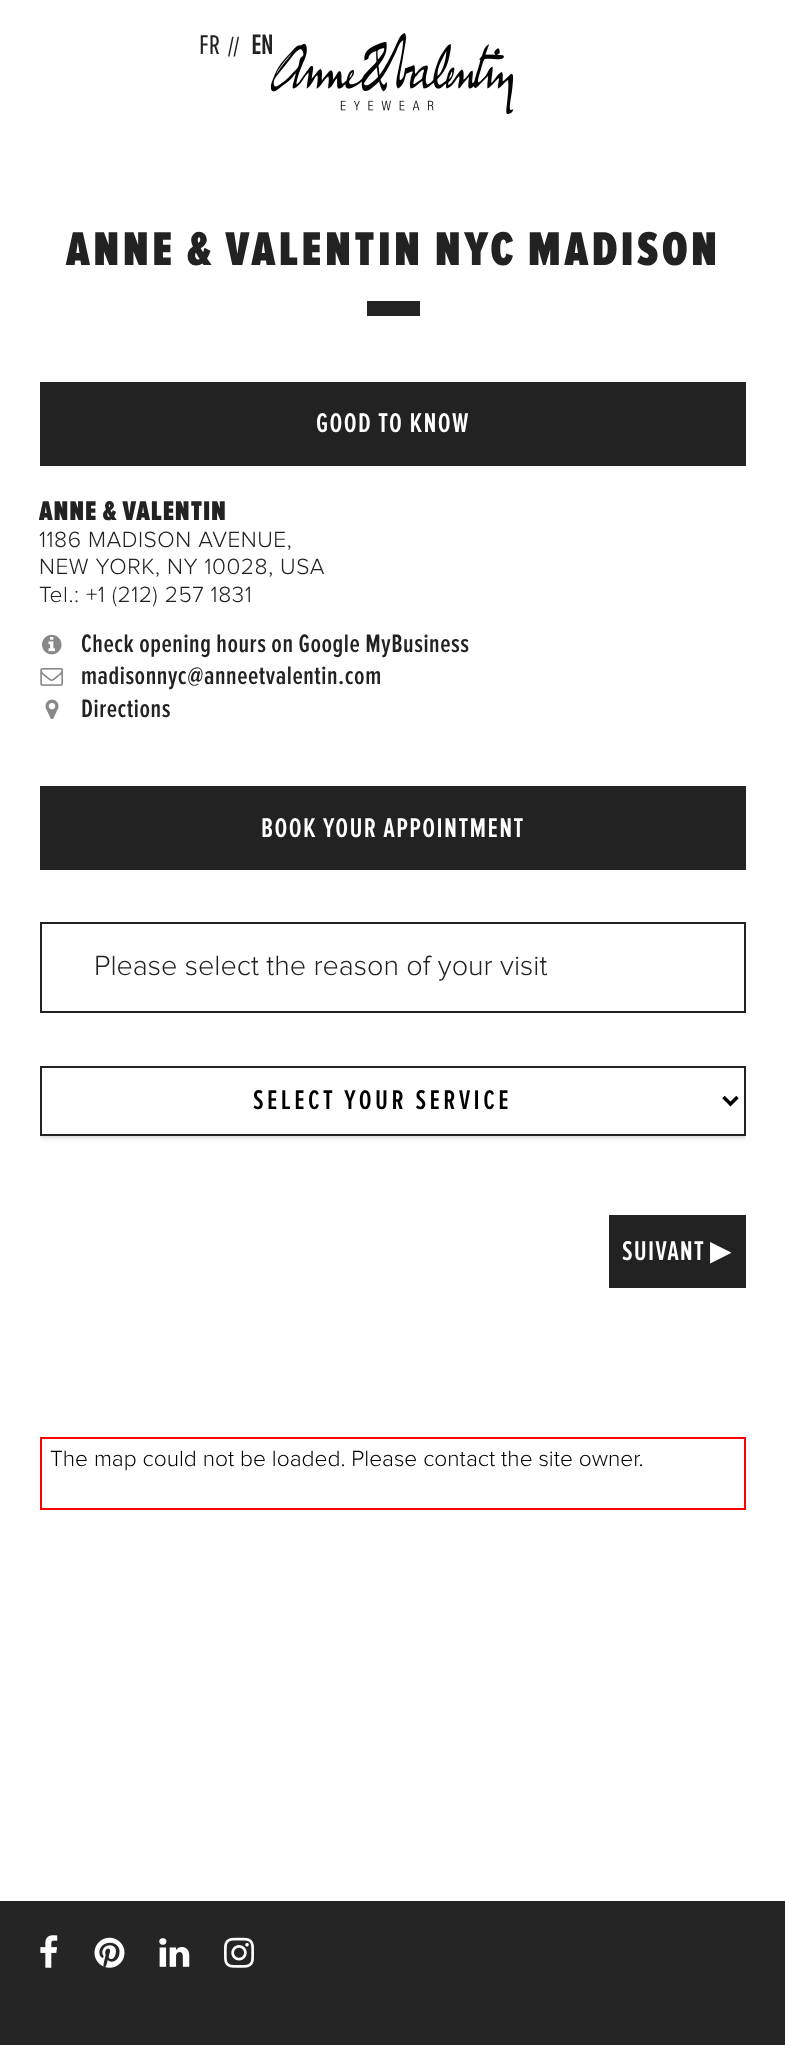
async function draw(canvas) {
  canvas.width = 785
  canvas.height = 2045
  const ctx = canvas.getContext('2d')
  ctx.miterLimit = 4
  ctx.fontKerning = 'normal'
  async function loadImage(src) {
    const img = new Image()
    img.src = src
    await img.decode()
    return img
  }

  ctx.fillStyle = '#fff'
  ctx.fillRect(0, 0, 785, 2045)
  ctx.font = '28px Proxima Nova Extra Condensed'
  ctx.fillStyle = '#222'
  ctx.fillText('FR', 199, 54)
  ctx.fillText('//', 228, 56)
  ctx.drawImage(await loadImage('image0.png'), 270, 33, 244, 81)
  ctx.font = 'bold 28px Proxima Nova Extra Condensed'
  ctx.fillText('EN', 251, 54)
  ctx.fillStyle = '#232323'
  ctx.fillRect(367, 301, 53, 15)
  ctx.letterSpacing = '3.5px'
  ctx.font = '900 49px Proxima Nova Extra Condensed'
  ctx.fillStyle = '#222'
  ctx.fillText('ANNE & VALENTIN NYC MADISON', 66, 265)
  ctx.fillRect(40, 382, 706, 84)
  ctx.letterSpacing = '1.4px'
  ctx.font = '600 28px Proxima Nova Extra Condensed'
  ctx.fillStyle = '#fff'
  ctx.fillText('GOOD TO KNOW', 316, 432)
  ctx.letterSpacing = '0.9px'
  ctx.font = '900 28px Proxima Nova Extra Condensed'
  ctx.fillStyle = '#222'
  ctx.fillText('ANNE & VALENTIN', 39, 520)
  ctx.letterSpacing = '0.55px'
  ctx.font = '300 22.75px Proxima Nova'
  ctx.fillText('1186 MADISON AVENUE,', 39, 547)
  ctx.fillText('NEW YORK, NY 10028, USA', 39, 574)
  ctx.fillText('Tel.: +1 (212) 257 1831', 39, 602)
  ctx.drawImage(await loadImage('image1.png'), 42, 634, 20, 21)
  ctx.font = '600 26.25px Proxima Nova Extra Condensed'
  ctx.fillText('Check opening hours on Google MyBusiness', 81, 652)
  ctx.drawImage(await loadImage('image2.png'), 40, 668, 23, 18)
  ctx.fillText('madisonnyc@anneetvalentin.com', 81, 684)
  ctx.drawImage(await loadImage('image3.png'), 45, 699, 14, 20)
  ctx.fillText('Directions', 81, 717)
  ctx.fillRect(40, 786, 706, 84)
  ctx.letterSpacing = '1.4px'
  ctx.font = '600 28px Proxima Nova Extra Condensed'
  ctx.fillStyle = '#fff'
  ctx.fillText('BOOK YOUR APPOINTMENT', 261, 837)
  ctx.strokeStyle = '#222'
  ctx.lineWidth = 2
  ctx.strokeRect(41, 923, 704, 89)
  ctx.letterSpacing = '0px'
  ctx.font = '300 28.75px Proxima Nova'
  ctx.fillStyle = '#222'
  ctx.fillText('Please select the reason of your visit', 94, 975)
  ctx.save()
  ctx.beginPath()
  ctx.rect(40, 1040, 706, 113)
  ctx.clip()
  ctx.fillStyle = '#00000029'
  ctx.filter = 'blur(2px)'
  ctx.beginPath()
  ctx.rect(40, 1068, 706, 70)
  ctx.fill()
  ctx.filter = 'none'
  ctx.restore()
  ctx.fillStyle = '#fff'
  ctx.beginPath()
  ctx.rect(41, 1067, 704, 68)
  ctx.fill()
  ctx.stroke()
  ctx.beginPath()
  ctx.moveTo(723.5, 1097)
  ctx.lineTo(730.5, 1104)
  ctx.lineTo(737.5, 1097)
  ctx.strokeStyle = '#000'
  ctx.lineWidth = 3.5
  ctx.stroke()
  ctx.letterSpacing = '3.5px'
  ctx.font = '600 28px Proxima Nova Extra Condensed'
  ctx.fillStyle = '#000'
  ctx.fillText('SELECT YOUR SERVICE', 253, 1109)
  ctx.fillStyle = '#222'
  ctx.fillRect(609, 1215, 137, 73)
  ctx.letterSpacing = '1.25px'
  ctx.fillStyle = '#fff'
  ctx.fillText('SUIVANT', 622, 1260)
  ctx.font = '28px DejaVu Sans'
  ctx.fillText('▶︎', 710, 1260)
  ctx.strokeStyle = '#f00'
  ctx.lineWidth = 2
  ctx.strokeRect(41, 1438, 704, 71)
  ctx.letterSpacing = '0px'
  ctx.font = '300 22.75px Proxima Nova'
  ctx.fillStyle = '#000'
  ctx.fillText('The map could not be loaded. Please contact the site owner.', 50, 1466)
  ctx.fillStyle = '#252525'
  ctx.fillRect(0, 1901, 785, 144)
  ctx.drawImage(await loadImage('image4.png'), 40, 1935, 18, 33)
  ctx.drawImage(await loadImage('image5.png'), 94, 1937, 31, 31)
  ctx.drawImage(await loadImage('image6.png'), 159, 1938, 31, 29)
  ctx.drawImage(await loadImage('image7.png'), 224, 1937, 30, 31)
}

draw(document.querySelector('canvas'))
